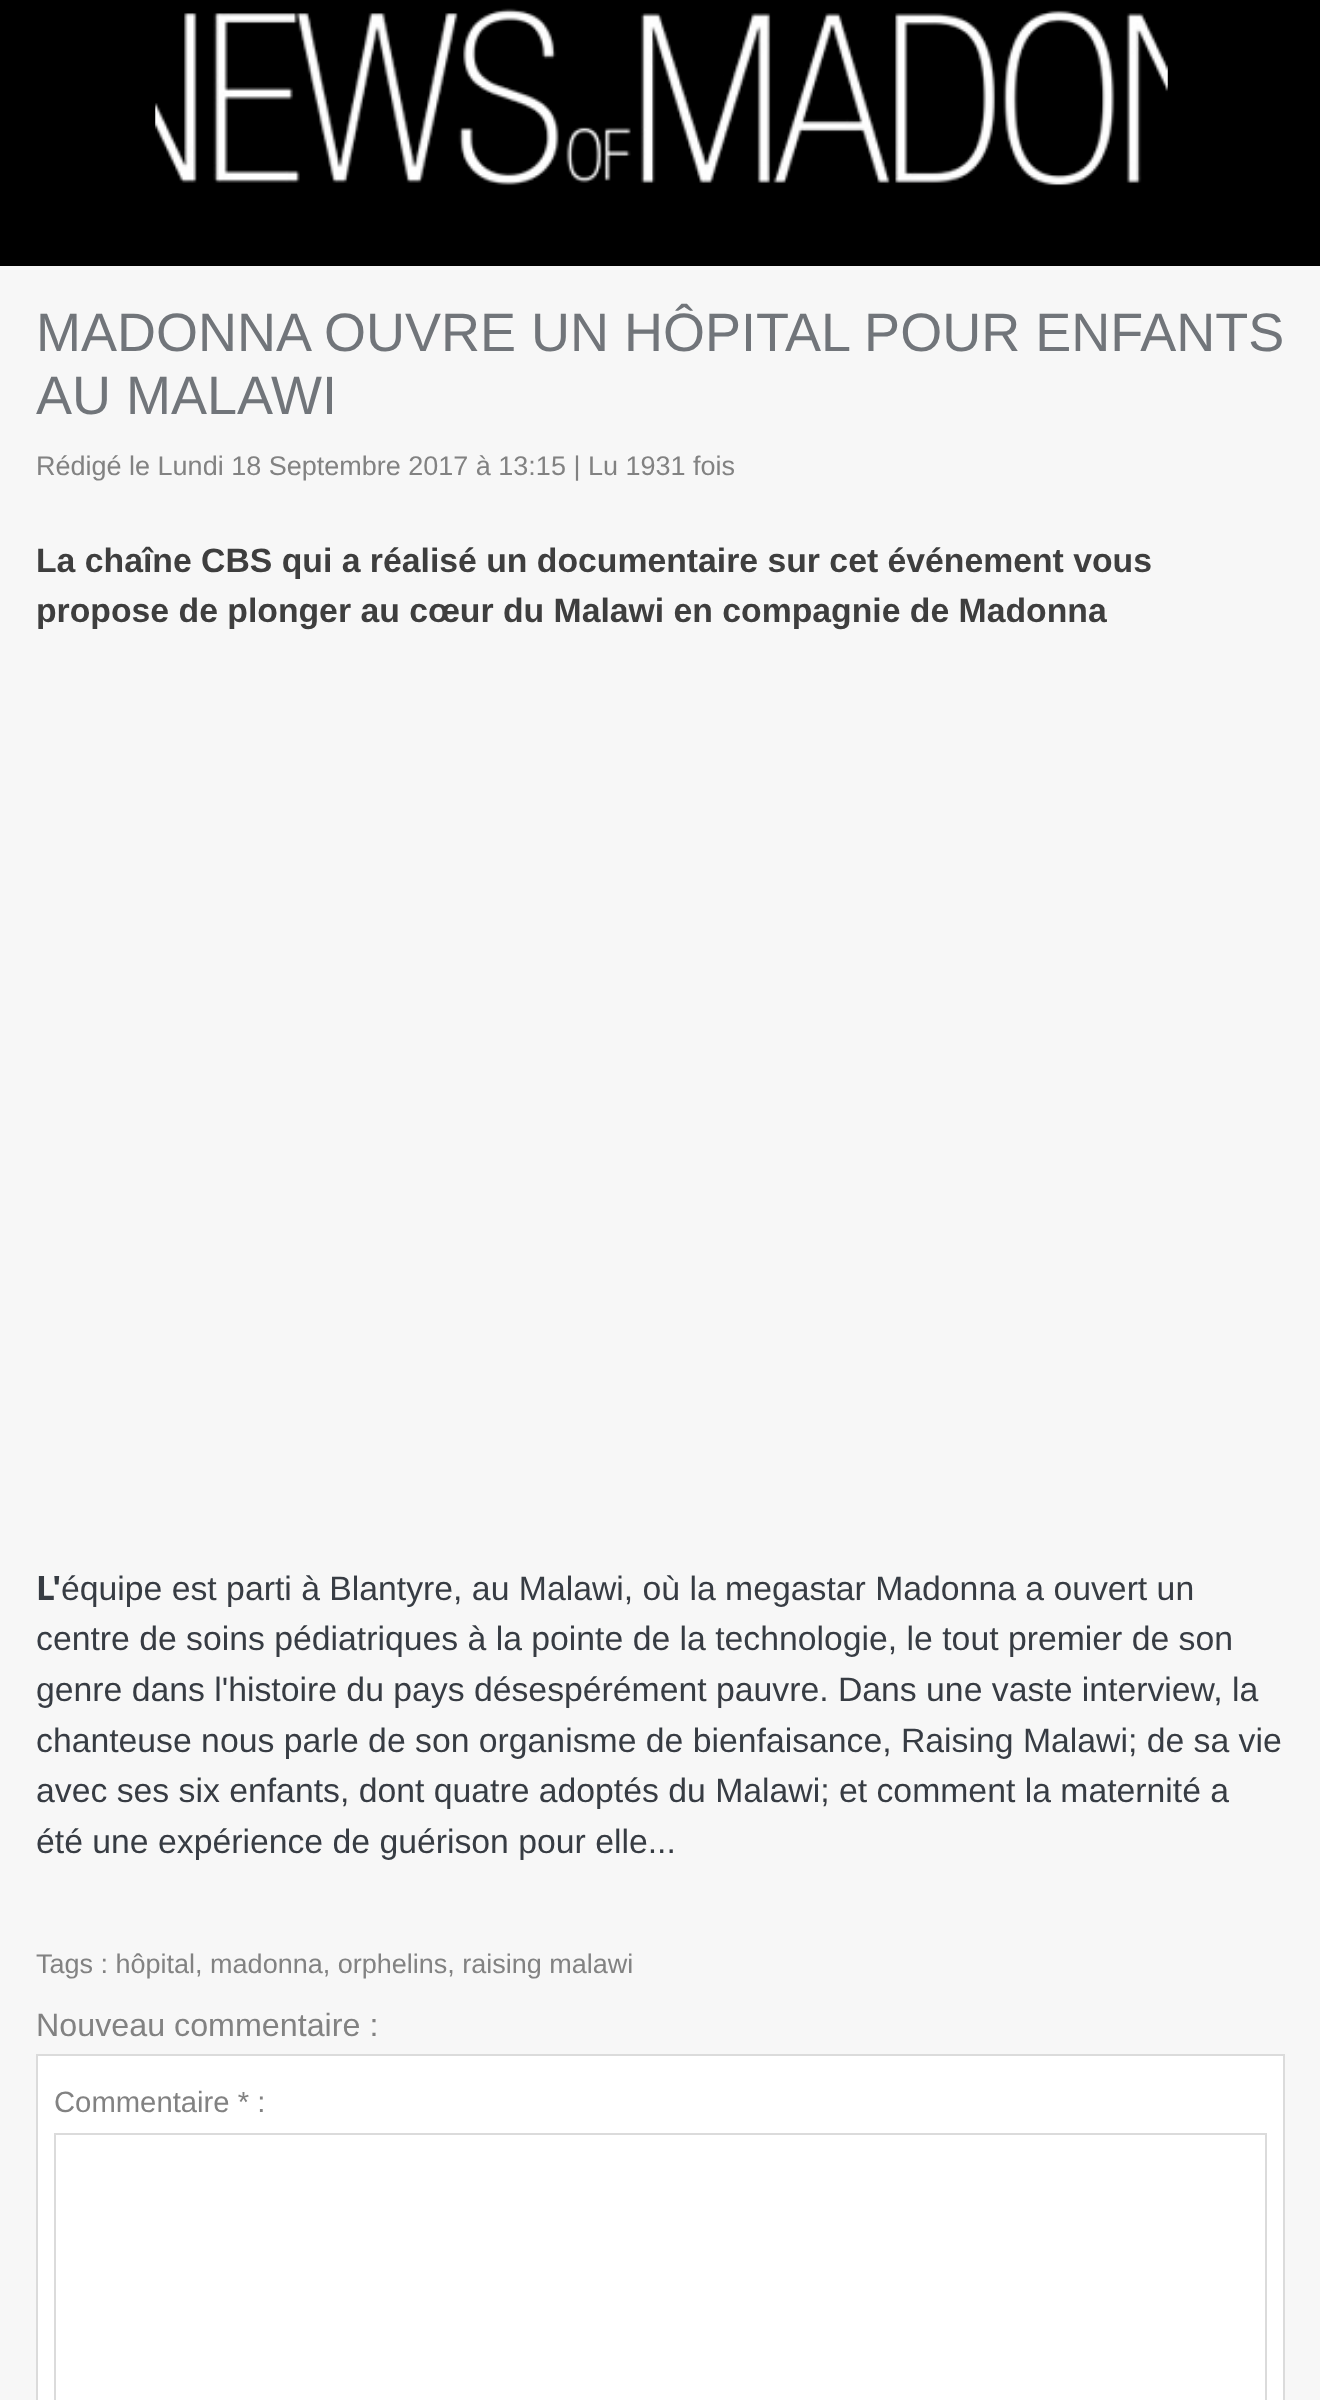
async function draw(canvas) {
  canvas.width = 1320
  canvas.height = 2400
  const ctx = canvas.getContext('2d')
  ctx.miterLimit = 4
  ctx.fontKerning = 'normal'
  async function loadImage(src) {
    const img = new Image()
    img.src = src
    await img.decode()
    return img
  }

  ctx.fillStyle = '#f7f7f7'
  ctx.fillRect(0, 0, 1320, 2400)
  ctx.fillStyle = '#000'
  ctx.fillRect(0, 0, 1320, 266)
  ctx.drawImage(await loadImage('image0.png'), 155, 8, 1013, 178)
  ctx.font = '54px Liberation Sans'
  ctx.fillStyle = '#71757a'
  ctx.fillText('MADONNA OUVRE UN HÔPITAL POUR ENFANTS', 36, 351)
  ctx.fillText('AU MALAWI', 36, 414)
  ctx.font = '27px Liberation Sans'
  ctx.fillStyle = '#828282'
  ctx.fillText('Rédigé le Lundi 18 Septembre 2017 à 13:15 | Lu 1931 fois', 36, 475)
  ctx.font = 'bold 33.75px Liberation Sans'
  ctx.fillStyle = '#3e3e3e'
  ctx.fillText('La chaîne CBS qui a réalisé un documentaire sur cet événement vous', 36, 572)
  ctx.fillText('propose de plonger au cœur du Malawi en compagnie de Madonna', 36, 622)
  ctx.font = 'bold 33.75px Noto Sans'
  ctx.fillStyle = '#373c43'
  ctx.fillText('L\'', 36, 1600)
  ctx.font = '33.75px Liberation Sans'
  ctx.fillText('équipe est parti à Blantyre, au Malawi, où la megastar Madonna a ouvert un', 61, 1600)
  ctx.fillText('centre de soins pédiatriques à la pointe de la technologie, le tout premier de son', 36, 1650)
  ctx.fillText('genre dans l\'histoire du pays désespérément pauvre. Dans une vaste interview, la', 36, 1701)
  ctx.fillText('chanteuse nous parle de son organisme de bienfaisance, Raising Malawi; de sa vie', 36, 1752)
  ctx.fillText('avec ses six enfants, dont quatre adoptés du Malawi; et comment la maternité a', 36, 1802)
  ctx.fillText('été une expérience de guérison pour elle...', 36, 1853)
  ctx.font = '27px Liberation Sans'
  ctx.fillStyle = '#828282'
  ctx.fillText('Tags : hôpital, madonna, orphelins, raising malawi', 36, 1973)
  ctx.font = '32.25px Liberation Sans'
  ctx.fillText('Nouveau commentaire :', 36, 2036)
  ctx.fillStyle = '#fff'
  ctx.beginPath()
  ctx.rect(37, 2055, 1247, 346)
  ctx.fill()
  ctx.strokeStyle = '#dbdbdb'
  ctx.lineWidth = 2
  ctx.stroke()
  ctx.font = '29.25px Liberation Sans'
  ctx.fillStyle = '#828282'
  ctx.fillText('Commentaire * :', 54, 2112)
  ctx.strokeRect(55, 2134, 1211, 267)
}

draw(document.querySelector('canvas'))
